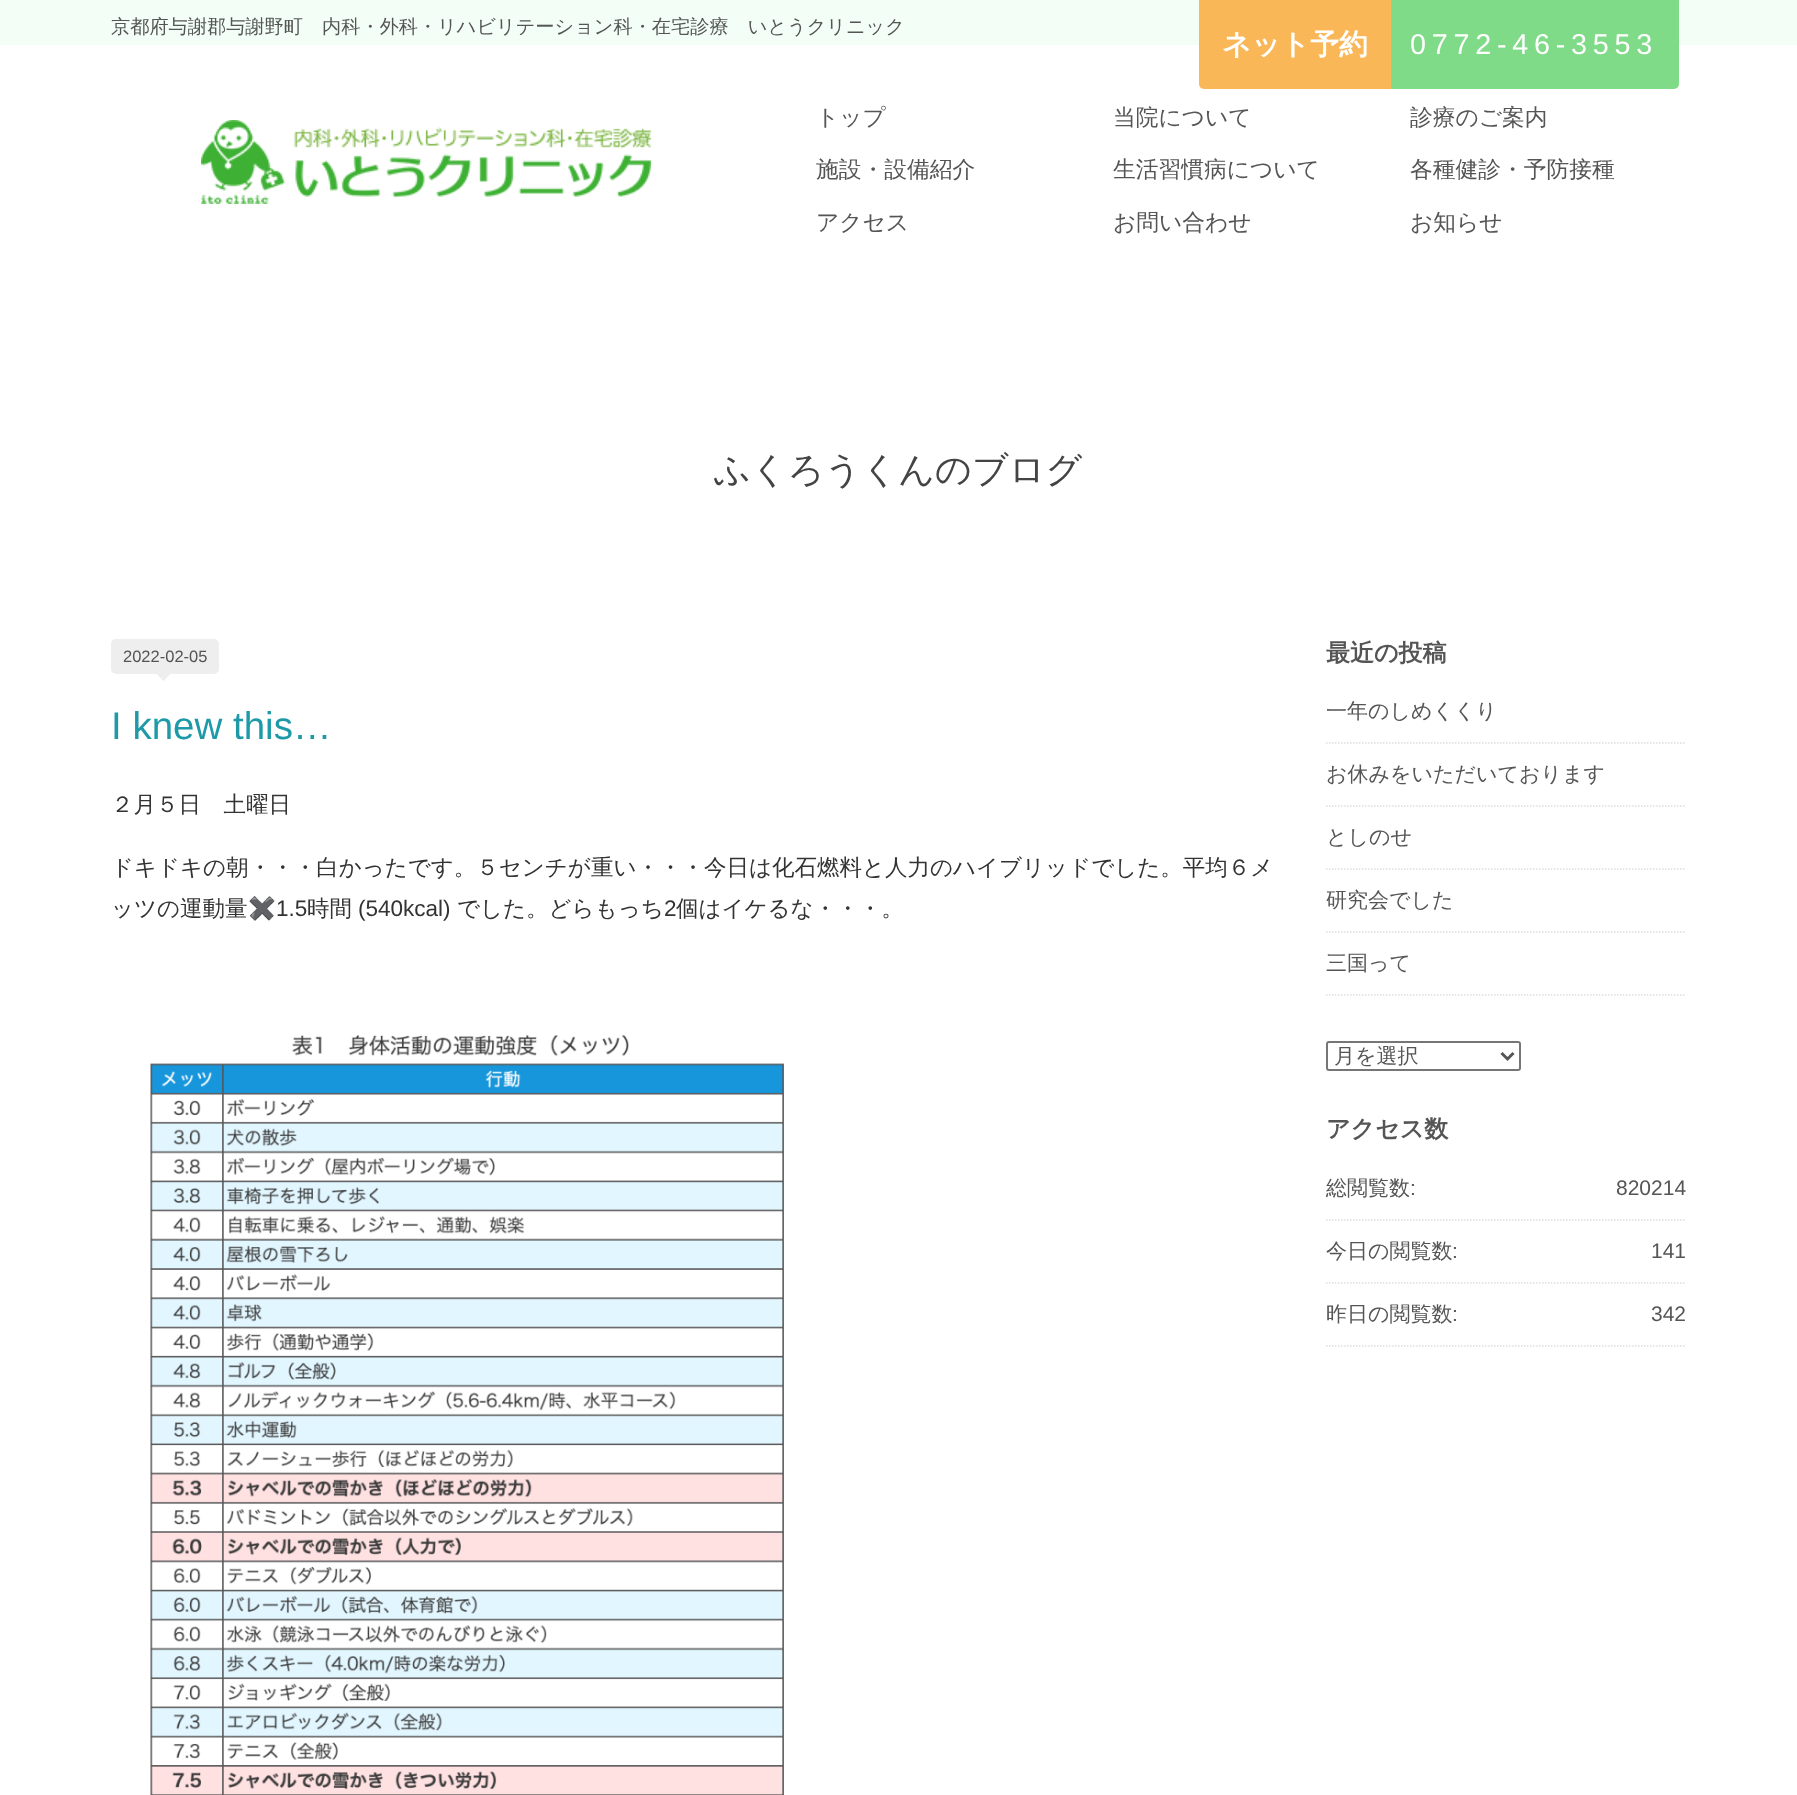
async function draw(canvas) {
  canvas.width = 1797
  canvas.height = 1795
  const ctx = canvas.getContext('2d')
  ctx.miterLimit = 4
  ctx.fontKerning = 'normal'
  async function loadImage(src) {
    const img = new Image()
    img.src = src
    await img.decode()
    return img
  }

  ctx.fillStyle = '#fff'
  ctx.fillRect(0, 0, 1797, 1795)
  ctx.fillStyle = '#f3fff6'
  ctx.fillRect(0, 0, 1797, 45)
  ctx.font = '500 19.2px WenQuanYi Zen Hei'
  ctx.fillStyle = '#555'
  ctx.fillText('京都府与謝郡与謝野町　内科・外科・リハビリテーション科・在宅診療　いとうクリニック', 111, 33)
  ctx.fillStyle = '#f9b758'
  ctx.beginPath()
  ctx.roundRect(1199, 0, 192, 89, [0, 0, 0, 5])
  ctx.fill()
  ctx.font = 'bold 28.75px WenQuanYi Zen Hei'
  ctx.fillStyle = '#fff'
  ctx.fillText('ネット予約', 1222, 54)
  ctx.fillStyle = '#7fdb88'
  ctx.beginPath()
  ctx.roundRect(1391, 0, 288, 89, [0, 0, 5, 0])
  ctx.fill()
  ctx.letterSpacing = '5.75px'
  ctx.font = '28.75px Liberation Sans'
  ctx.fillStyle = '#fff'
  ctx.fillText('0772-46-3553', 1410, 54)
  ctx.drawImage(await loadImage('image0.png'), 201, 120, 450, 84)
  ctx.letterSpacing = '0px'
  ctx.font = '500 22.75px WenQuanYi Zen Hei'
  ctx.fillStyle = '#555'
  ctx.fillText('トップ', 816, 125)
  ctx.fillText('当院について', 1113, 125)
  ctx.fillText('診療のご案内', 1410, 125)
  ctx.fillText('施設・設備紹介', 816, 177)
  ctx.fillText('生活習慣病について', 1113, 177)
  ctx.fillText('各種健診・予防接種', 1410, 177)
  ctx.fillText('アクセス', 816, 230)
  ctx.fillText('お問い合わせ', 1113, 230)
  ctx.fillText('お知らせ', 1410, 230)
  ctx.font = '500 36px WenQuanYi Zen Hei'
  ctx.fillStyle = '#444'
  ctx.fillText('ふくろうくんのブログ', 714, 482)
  ctx.fillStyle = '#eee'
  ctx.beginPath()
  ctx.roundRect(111, 639, 108, 35, 5)
  ctx.fill()
  ctx.font = '16.5px Liberation Sans'
  ctx.fillStyle = '#555'
  ctx.fillText('2022-02-05', 123, 662)
  ctx.fillStyle = '#eee'
  ctx.beginPath()
  ctx.moveTo(156, 673.5)
  ctx.lineTo(171, 673.5)
  ctx.lineTo(163.5, 681)
  ctx.closePath()
  ctx.fill()
  ctx.font = '38.5px Liberation Sans'
  ctx.fillStyle = '#1e99a8'
  ctx.fillText('I knew this…', 111, 739)
  ctx.font = '500 22.5px WenQuanYi Zen Hei'
  ctx.fillStyle = '#333'
  ctx.fillText('２月５日　土曜日', 111, 812)
  ctx.fillText('ドキドキの朝・・・白かったです。５センチが重い・・・今日は化石燃料と人力のハイブリッドでした。平均６メ', 111, 875)
  ctx.fillText('ッツの運動量', 111, 916)
  ctx.font = '22.5px Noto Color Emoji'
  ctx.fillText('✖️', 248, 916)
  ctx.font = '22.5px Liberation Sans'
  ctx.fillText('1.5', 276, 916)
  ctx.font = '500 22.5px WenQuanYi Zen Hei'
  ctx.fillText('時間', 307, 916)
  ctx.font = '22.5px Liberation Sans'
  ctx.fillText('(540kcal)', 358, 916)
  ctx.font = '500 22.5px WenQuanYi Zen Hei'
  ctx.fillText('でした。どらもっち', 457, 916)
  ctx.font = '22.5px Liberation Sans'
  ctx.fillText('2', 664, 916)
  ctx.font = '500 22.5px WenQuanYi Zen Hei'
  ctx.fillText('個はイケるな・・・。', 676, 916)
  ctx.drawImage(await loadImage('image1.png'), 150, 1035, 634, 760)
  ctx.font = 'bold 24px WenQuanYi Zen Hei'
  ctx.fillStyle = '#555'
  ctx.fillText('最近の投稿', 1326, 661)
  ctx.beginPath()
  ctx.moveTo(1326, 743)
  ctx.lineTo(1686, 743)
  ctx.strokeStyle = '#ddd'
  ctx.lineWidth = 1.5
  ctx.setLineDash([1.5, 1.5])
  ctx.stroke()
  ctx.font = '500 21px WenQuanYi Zen Hei'
  ctx.fillText('一年のしめくくり', 1326, 718)
  ctx.beginPath()
  ctx.moveTo(1326, 806)
  ctx.lineTo(1686, 806)
  ctx.stroke()
  ctx.fillText('お休みをいただいております', 1326, 781)
  ctx.beginPath()
  ctx.moveTo(1326, 869)
  ctx.lineTo(1686, 869)
  ctx.stroke()
  ctx.fillText('としのせ', 1326, 844)
  ctx.beginPath()
  ctx.moveTo(1326, 932)
  ctx.lineTo(1686, 932)
  ctx.stroke()
  ctx.fillText('研究会でした', 1326, 907)
  ctx.beginPath()
  ctx.moveTo(1326, 995)
  ctx.lineTo(1686, 995)
  ctx.stroke()
  ctx.fillText('三国って', 1326, 970)
  ctx.beginPath()
  ctx.roundRect(1327, 1042, 193, 28, 2)
  ctx.strokeStyle = '#767676'
  ctx.lineWidth = 2
  ctx.setLineDash([])
  ctx.stroke()
  ctx.beginPath()
  ctx.moveTo(1501.5, 1053)
  ctx.lineTo(1507.5, 1059)
  ctx.lineTo(1513.5, 1053)
  ctx.strokeStyle = '#555'
  ctx.lineWidth = 3
  ctx.stroke()
  ctx.fillText('月を選択', 1334, 1063)
  ctx.font = 'bold 24px WenQuanYi Zen Hei'
  ctx.fillText('アクセス数', 1326, 1137)
  ctx.beginPath()
  ctx.moveTo(1326, 1220)
  ctx.lineTo(1686, 1220)
  ctx.strokeStyle = '#ddd'
  ctx.lineWidth = 1.5
  ctx.setLineDash([1.5, 1.5])
  ctx.stroke()
  ctx.font = '500 21px WenQuanYi Zen Hei'
  ctx.fillText('総閲覧数', 1326, 1195)
  ctx.font = '21px Liberation Sans'
  ctx.fillText(':', 1410, 1195)
  ctx.fillText('820214', 1616, 1195)
  ctx.beginPath()
  ctx.moveTo(1326, 1283)
  ctx.lineTo(1686, 1283)
  ctx.stroke()
  ctx.font = '500 21px WenQuanYi Zen Hei'
  ctx.fillText('今日の閲覧数', 1326, 1258)
  ctx.font = '21px Liberation Sans'
  ctx.fillText(':', 1452, 1258)
  ctx.fillText('141', 1651, 1258)
  ctx.beginPath()
  ctx.moveTo(1326, 1346)
  ctx.lineTo(1686, 1346)
  ctx.stroke()
  ctx.font = '500 21px WenQuanYi Zen Hei'
  ctx.fillText('昨日の閲覧数', 1326, 1321)
  ctx.font = '21px Liberation Sans'
  ctx.fillText(':', 1452, 1321)
  ctx.fillText('342', 1651, 1321)
}

draw(document.querySelector('canvas'))
